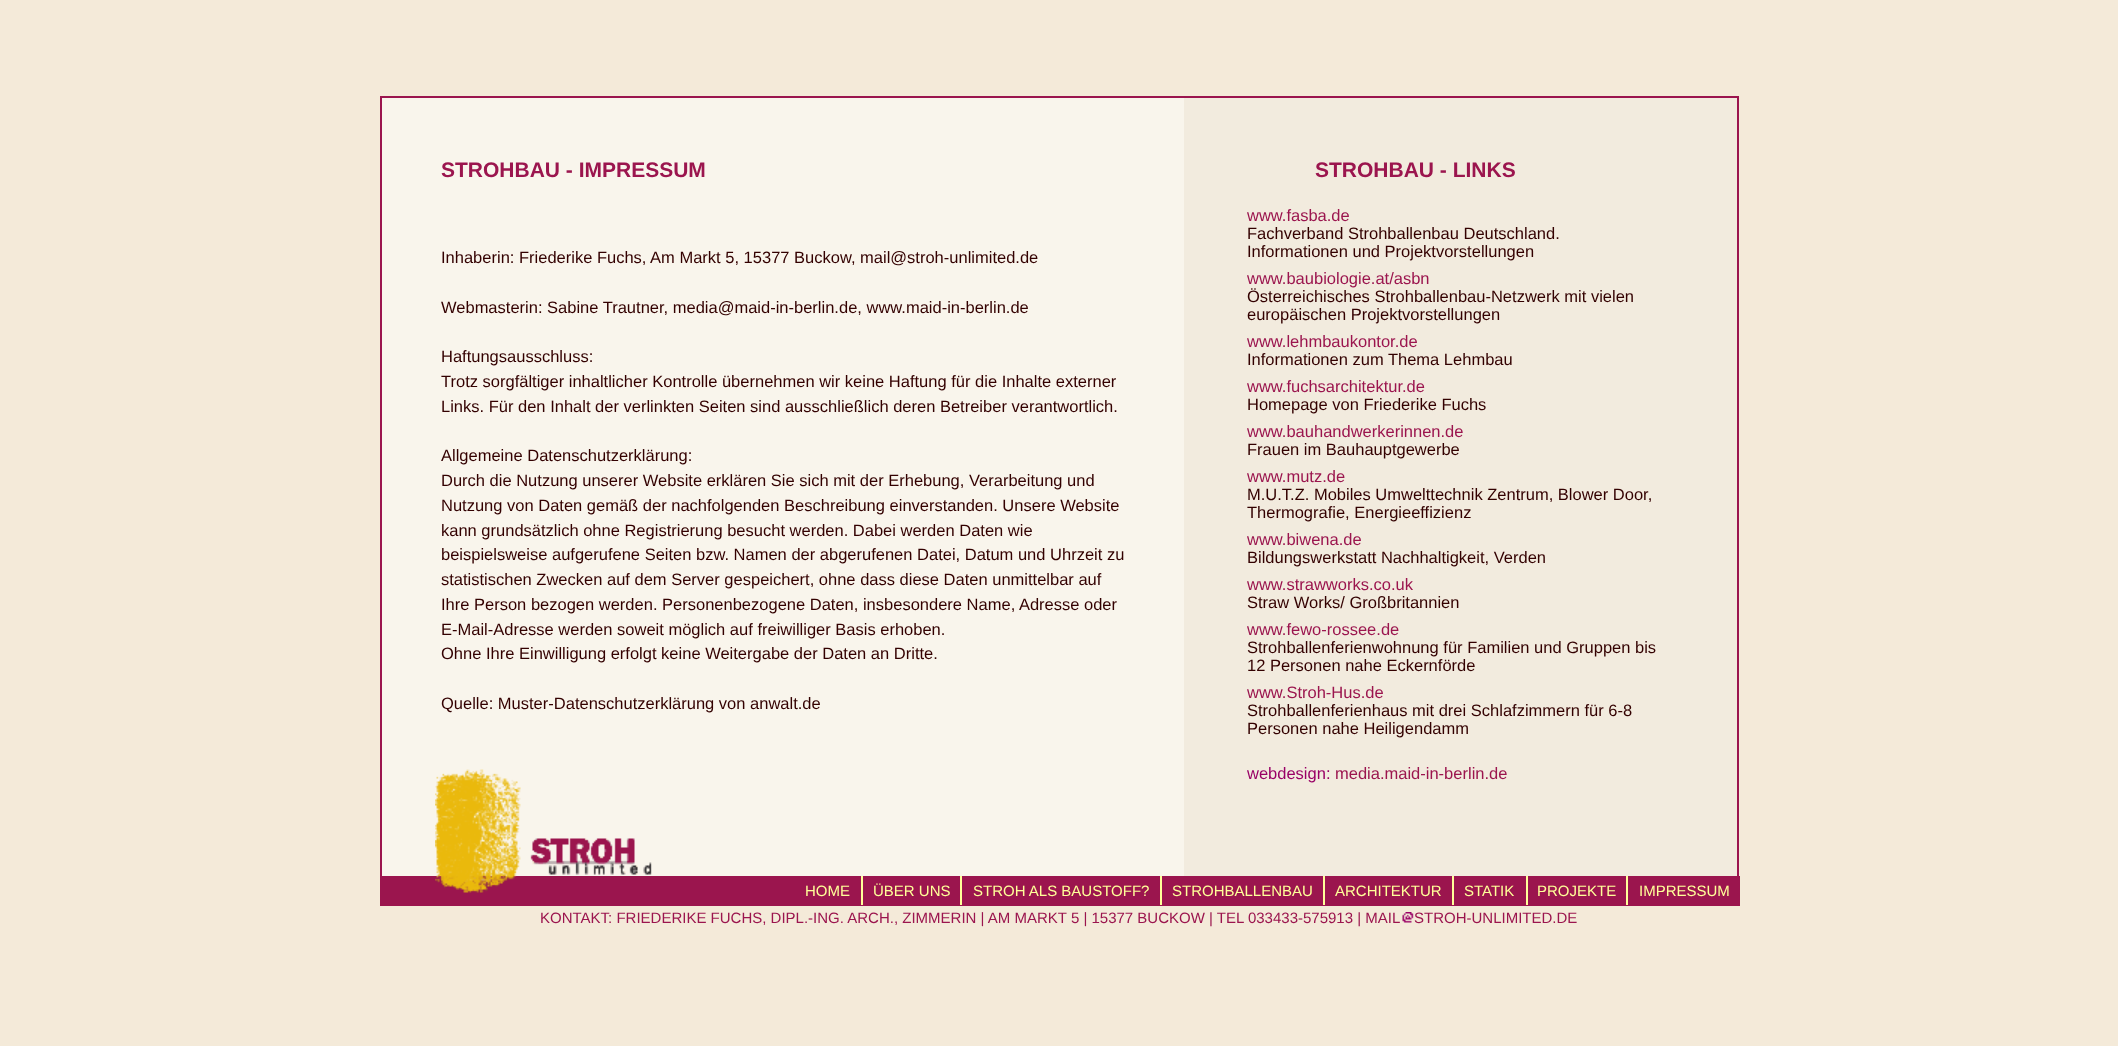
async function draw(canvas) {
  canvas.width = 2118
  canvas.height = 1046
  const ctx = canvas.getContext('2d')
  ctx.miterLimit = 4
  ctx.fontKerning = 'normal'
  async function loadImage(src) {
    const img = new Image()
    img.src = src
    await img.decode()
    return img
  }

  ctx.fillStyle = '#f4ead9'
  ctx.fillRect(0, 0, 2118, 1046)
  ctx.fillStyle = '#f2ebde'
  ctx.fillRect(1184, 98, 553, 778)
  ctx.fillStyle = '#f9f5ec'
  ctx.fillRect(382, 98, 802, 778)
  ctx.fillStyle = '#9b154e'
  ctx.fillRect(380, 96, 1359, 2)
  ctx.fillRect(1737, 96, 2, 782)
  ctx.fillRect(380, 96, 2, 782)
  ctx.font = 'bold 21px Liberation Sans'
  ctx.fillText('STROHBAU - IMPRESSUM', 441, 177)
  ctx.fillText('STROHBAU - LINKS', 1315, 177)
  ctx.font = '16.5px Liberation Sans'
  ctx.fillStyle = '#300'
  ctx.fillText('Inhaberin: Friederike Fuchs, Am Markt 5, 15377 Buckow, mail@stroh-unlimited.de', 441, 263)
  ctx.fillText('Webmasterin: Sabine Trautner, media@maid-in-berlin.de, www.maid-in-berlin.de', 441, 313)
  ctx.fillText('Haftungsausschluss:', 441, 362)
  ctx.fillText('Trotz sorgfältiger inhaltlicher Kontrolle übernehmen wir keine Haftung für die Inhalte externer', 441, 387)
  ctx.fillText('Links. Für den Inhalt der verlinkten Seiten sind ausschließlich deren Betreiber verantwortlich.', 441, 412)
  ctx.fillText('Allgemeine Datenschutzerklärung:', 441, 461)
  ctx.fillText('Durch die Nutzung unserer Website erklären Sie sich mit der Erhebung, Verarbeitung und', 441, 486)
  ctx.fillText('Nutzung von Daten gemäß der nachfolgenden Beschreibung einverstanden. Unsere Website', 441, 511)
  ctx.fillText('kann grundsätzlich ohne Registrierung besucht werden. Dabei werden Daten wie', 441, 536)
  ctx.fillText('beispielsweise aufgerufene Seiten bzw. Namen der abgerufenen Datei, Datum und Uhrzeit zu', 441, 560)
  ctx.fillText('statistischen Zwecken auf dem Server gespeichert, ohne dass diese Daten unmittelbar auf', 441, 585)
  ctx.fillText('Ihre Person bezogen werden. Personenbezogene Daten, insbesondere Name, Adresse oder', 441, 610)
  ctx.fillText('E-Mail-Adresse werden soweit möglich auf freiwilliger Basis erhoben.', 441, 635)
  ctx.fillText('Ohne Ihre Einwilligung erfolgt keine Weitergabe der Daten an Dritte.', 441, 659)
  ctx.fillText('Quelle: Muster-Datenschutzerklärung von anwalt.de', 441, 709)
  ctx.fillStyle = '#9b154e'
  ctx.fillText('www.fasba.de', 1247, 221)
  ctx.fillStyle = '#300'
  ctx.fillText('Fachverband Strohballenbau Deutschland.', 1247, 239)
  ctx.fillText('Informationen und Projektvorstellungen', 1247, 257)
  ctx.fillStyle = '#9b154e'
  ctx.fillText('www.baubiologie.at/asbn', 1247, 284)
  ctx.fillStyle = '#300'
  ctx.fillText('Österreichisches Strohballenbau-Netzwerk mit vielen', 1247, 302)
  ctx.fillText('europäischen Projektvorstellungen', 1247, 320)
  ctx.fillStyle = '#9b154e'
  ctx.fillText('www.lehmbaukontor.de', 1247, 347)
  ctx.fillStyle = '#300'
  ctx.fillText('Informationen zum Thema Lehmbau', 1247, 365)
  ctx.fillStyle = '#9b154e'
  ctx.fillText('www.fuchsarchitektur.de', 1247, 392)
  ctx.fillStyle = '#300'
  ctx.fillText('Homepage von Friederike Fuchs', 1247, 410)
  ctx.fillStyle = '#9b154e'
  ctx.fillText('www.bauhandwerkerinnen.de', 1247, 437)
  ctx.fillStyle = '#300'
  ctx.fillText('Frauen im Bauhauptgewerbe', 1247, 455)
  ctx.fillStyle = '#9b154e'
  ctx.fillText('www.mutz.de', 1247, 482)
  ctx.fillStyle = '#300'
  ctx.fillText('M.U.T.Z. Mobiles Umwelttechnik Zentrum, Blower Door,', 1247, 500)
  ctx.fillText('Thermografie, Energieeffizienz', 1247, 518)
  ctx.fillStyle = '#9b154e'
  ctx.fillText('www.biwena.de', 1247, 545)
  ctx.fillStyle = '#300'
  ctx.fillText('Bildungswerkstatt Nachhaltigkeit, Verden', 1247, 563)
  ctx.fillStyle = '#9b154e'
  ctx.fillText('www.strawworks.co.uk', 1247, 590)
  ctx.fillStyle = '#300'
  ctx.fillText('Straw Works/ Großbritannien', 1247, 608)
  ctx.fillStyle = '#9b154e'
  ctx.fillText('www.fewo-rossee.de', 1247, 635)
  ctx.fillStyle = '#300'
  ctx.fillText('Strohballenferienwohnung für Familien und Gruppen bis', 1247, 653)
  ctx.fillText('12 Personen nahe Eckernförde', 1247, 671)
  ctx.fillStyle = '#9b154e'
  ctx.fillText('www.Stroh-Hus.de', 1247, 698)
  ctx.fillStyle = '#300'
  ctx.fillText('Strohballenferienhaus mit drei Schlafzimmern für 6-8', 1247, 716)
  ctx.fillText('Personen nahe Heiligendamm', 1247, 734)
  ctx.fillStyle = '#906'
  ctx.fillText('webdesign:', 1247, 779)
  ctx.fillStyle = '#9b154e'
  ctx.fillText('media.maid-in-berlin.de', 1335, 779)
  ctx.fillRect(380, 876, 1360, 30)
  ctx.drawImage(await loadImage('image0.png'), 435, 769, 217, 124)
  ctx.font = '15px Liberation Sans'
  ctx.fillStyle = '#ff9'
  ctx.fillText('HOME', 805, 896)
  ctx.fillRect(861, 876, 2, 29)
  ctx.fillText('ÜBER UNS', 873, 896)
  ctx.fillRect(960, 876, 2, 29)
  ctx.fillText('STROH ALS BAUSTOFF?', 973, 896)
  ctx.fillRect(1160, 876, 2, 29)
  ctx.fillText('STROHBALLENBAU', 1172, 896)
  ctx.fillRect(1323, 876, 2, 29)
  ctx.fillText('ARCHITEKTUR', 1335, 896)
  ctx.fillRect(1452, 876, 2, 29)
  ctx.fillText('STATIK', 1464, 896)
  ctx.fillRect(1526, 876, 2, 29)
  ctx.fillText('PROJEKTE', 1537, 896)
  ctx.fillRect(1626, 876, 2, 29)
  ctx.fillText('IMPRESSUM', 1639, 896)
  ctx.fillStyle = '#9b154e'
  ctx.fillText('KONTAKT: FRIEDERIKE FUCHS, DIPL.-ING. ARCH., ZIMMERIN | AM MARKT 5 | 15377 BUCKOW | TEL 033433-575913 | MAIL', 540, 923)
  ctx.drawImage(await loadImage('image1.png'), 1402, 912, 12, 11)
  ctx.fillText('STROH-UNLIMITED.DE', 1414, 923)
}

draw(document.querySelector('canvas'))
